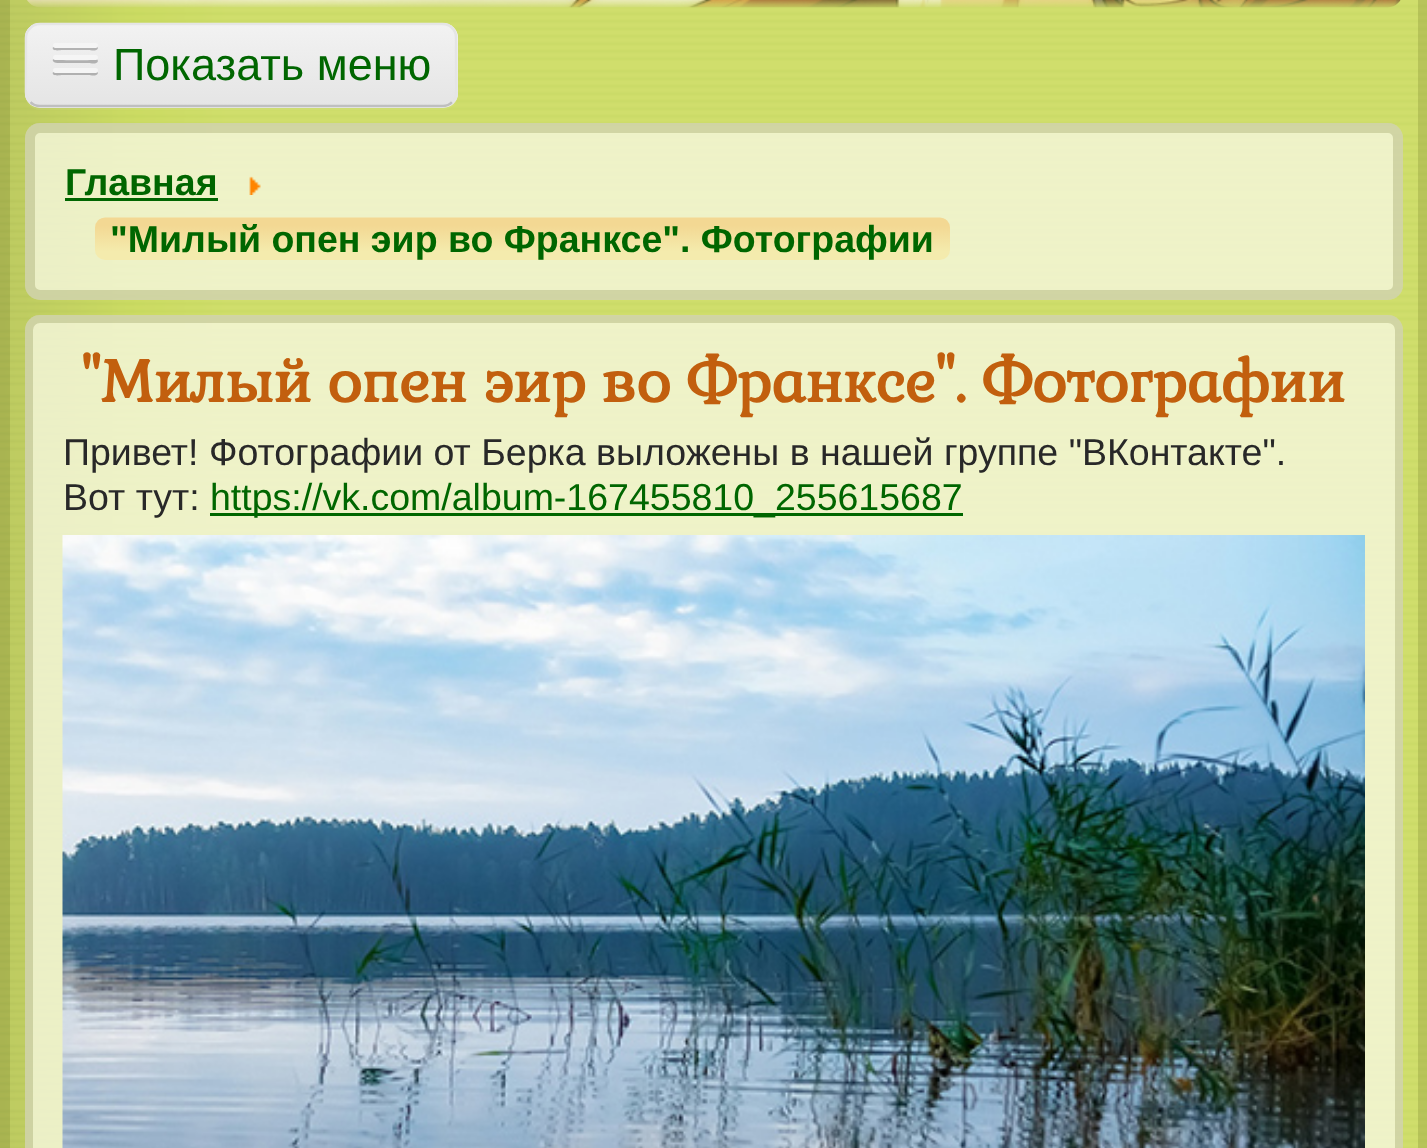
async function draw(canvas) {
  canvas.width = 1427
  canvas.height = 1148
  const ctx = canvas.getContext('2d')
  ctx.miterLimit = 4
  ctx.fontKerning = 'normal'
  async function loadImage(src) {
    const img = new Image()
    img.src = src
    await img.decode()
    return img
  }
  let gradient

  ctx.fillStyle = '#fff'
  ctx.fillRect(0, 0, 1427, 1148)
  ctx.drawImage(await loadImage('image0.png'), 0, 0, 1427, 1148)
  ctx.strokeStyle = '#585e1533'
  ctx.lineWidth = 10
  ctx.strokeRect(5, -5, 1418, 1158)
  ctx.drawImage(await loadImage('image1.png'), 27, 0, 1374, 8)
  ctx.fillStyle = '#ffffff12'
  ctx.beginPath()
  ctx.moveTo(25, 92)
  ctx.lineTo(25, 95)
  ctx.bezierCurveTo(25, 103, 32, 110, 40, 110)
  ctx.lineTo(443, 110)
  ctx.bezierCurveTo(451, 110, 458, 103, 458, 95)
  ctx.lineTo(458, 40)
  ctx.lineTo(457, 36)
  ctx.lineTo(458, 92)
  ctx.bezierCurveTo(458, 101, 451, 108, 442, 108)
  ctx.lineTo(40, 108)
  ctx.bezierCurveTo(32, 108, 25, 101, 25, 92)
  ctx.closePath()
  ctx.fill()
  ctx.fillStyle = '#ededed'
  ctx.beginPath()
  ctx.roundRect(25, 23, 433, 85, 15)
  ctx.fill()
  ctx.save()
  ctx.beginPath()
  ctx.roundRect(25, 23, 433, 85, 15)
  ctx.clip()
  gradient = ctx.createLinearGradient(241, 25, 241, 105)
  gradient.addColorStop(0, '#f2f2f2')
  gradient.addColorStop(1, '#e5e5e5')
  ctx.fillStyle = gradient
  ctx.fillRect(25, 25, 433, 80)
  ctx.restore()
  ctx.beginPath()
  ctx.moveTo(452, 102)
  ctx.bezierCurveTo(449.5, 105, 446, 106, 442.5, 106)
  ctx.lineTo(40, 106)
  ctx.bezierCurveTo(36.5, 106, 33, 105, 30.5, 102)
  ctx.strokeStyle = '#bfbfbf'
  ctx.lineWidth = 2.5
  ctx.stroke()
  ctx.beginPath()
  ctx.moveTo(30.5, 102)
  ctx.bezierCurveTo(27.5, 99.5, 26, 96, 26, 92.5)
  ctx.lineTo(26, 37.5)
  ctx.bezierCurveTo(26, 34, 27.5, 30.5, 30.5, 28)
  ctx.bezierCurveTo(33, 25, 36.5, 24, 40, 24)
  ctx.lineTo(442.5, 24)
  ctx.bezierCurveTo(446, 24, 449.5, 25, 452, 28)
  ctx.bezierCurveTo(455, 30.5, 456, 34, 456, 37.5)
  ctx.lineTo(456, 92.5)
  ctx.bezierCurveTo(456, 96, 455, 99.5, 452, 102)
  ctx.strokeStyle = '#e5e5e5'
  ctx.stroke()
  ctx.fillStyle = '#b3b3b3'
  ctx.beginPath()
  ctx.moveTo(53, 47)
  ctx.bezierCurveTo(51, 52, 61, 50, 62, 50)
  ctx.lineTo(89, 50)
  ctx.bezierCurveTo(90, 50, 97, 52, 98, 48)
  ctx.lineTo(97, 46)
  ctx.lineTo(95, 47)
  ctx.lineTo(55, 47)
  ctx.closePath()
  ctx.fill()
  ctx.fillStyle = '#f5f5f5'
  ctx.beginPath()
  ctx.roundRect(53, 43, 45, 5, 2.5)
  ctx.fill()
  ctx.fillStyle = '#b1b1b1'
  ctx.beginPath()
  ctx.moveTo(53, 59)
  ctx.bezierCurveTo(51, 64, 62, 63, 62, 63)
  ctx.lineTo(89, 63)
  ctx.bezierCurveTo(90, 63, 97, 65, 98, 61)
  ctx.lineTo(97, 59)
  ctx.lineTo(95, 60)
  ctx.bezierCurveTo(92, 60, 55, 61, 53, 59)
  ctx.closePath()
  ctx.fill()
  ctx.fillStyle = '#f5f5f5'
  ctx.beginPath()
  ctx.roundRect(53, 55, 45, 5, 2.5)
  ctx.fill()
  ctx.font = '45px Liberation Sans'
  ctx.fillStyle = '#060'
  ctx.fillText('Показать меню', 113, 80)
  ctx.fillStyle = '#b0b0b0'
  ctx.beginPath()
  ctx.moveTo(53, 72)
  ctx.bezierCurveTo(51, 77, 61, 75, 62, 75)
  ctx.lineTo(89, 75)
  ctx.bezierCurveTo(90, 75, 97, 77, 98, 73)
  ctx.lineTo(97, 71)
  ctx.lineTo(95, 72)
  ctx.lineTo(55, 72)
  ctx.closePath()
  ctx.fill()
  ctx.fillStyle = '#f5f5f5'
  ctx.beginPath()
  ctx.roundRect(53, 68, 45, 5, 2.5)
  ctx.fill()
  ctx.fillStyle = '#f6f8e0cc'
  ctx.beginPath()
  ctx.roundRect(25, 123, 1378, 177, 15)
  ctx.fill()
  ctx.beginPath()
  ctx.roundRect(30, 128, 1368, 167, 10)
  ctx.strokeStyle = '#585e1533'
  ctx.lineWidth = 10
  ctx.stroke()
  ctx.font = 'bold 37.5px Liberation Sans'
  ctx.fillStyle = '#060'
  ctx.fillText('Главная', 65, 195)
  ctx.fillRect(65, 198, 153, 3)
  ctx.drawImage(await loadImage('image2.png'), 249, 176, 12, 19)
  ctx.drawImage(await loadImage('image3.png'), 95, 217, 855, 43)
  ctx.fillText('"Милый опен эир во Франксе". Фотографии', 110, 252)
  ctx.fillStyle = '#f6f8e0cc'
  ctx.beginPath()
  ctx.roundRect(25, 315, 1378, 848, 15)
  ctx.fill()
  ctx.beginPath()
  ctx.roundRect(29, 319, 1370, 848, 11)
  ctx.lineWidth = 8
  ctx.stroke()
  ctx.font = 'bold 57.5px Gabriela'
  ctx.fillStyle = '#c25f0e'
  ctx.fillText('"Милый опен эир во Франксе". Фотографии', 81, 402)
  ctx.font = '37.5px Liberation Sans'
  ctx.fillStyle = '#282828'
  ctx.fillText('Привет! Фотографии от Берка выложены в нашей группе "ВКонтакте".', 63, 465)
  ctx.fillText('Вот тут:', 63, 510)
  ctx.fillStyle = '#060'
  ctx.fillRect(210, 513, 753, 3)
  ctx.fillText('https://vk.com/album-167455810_255615687', 210, 510)
  ctx.drawImage(await loadImage('image4.png'), 62, 535, 1303, 613)
}

draw(document.querySelector('canvas'))
